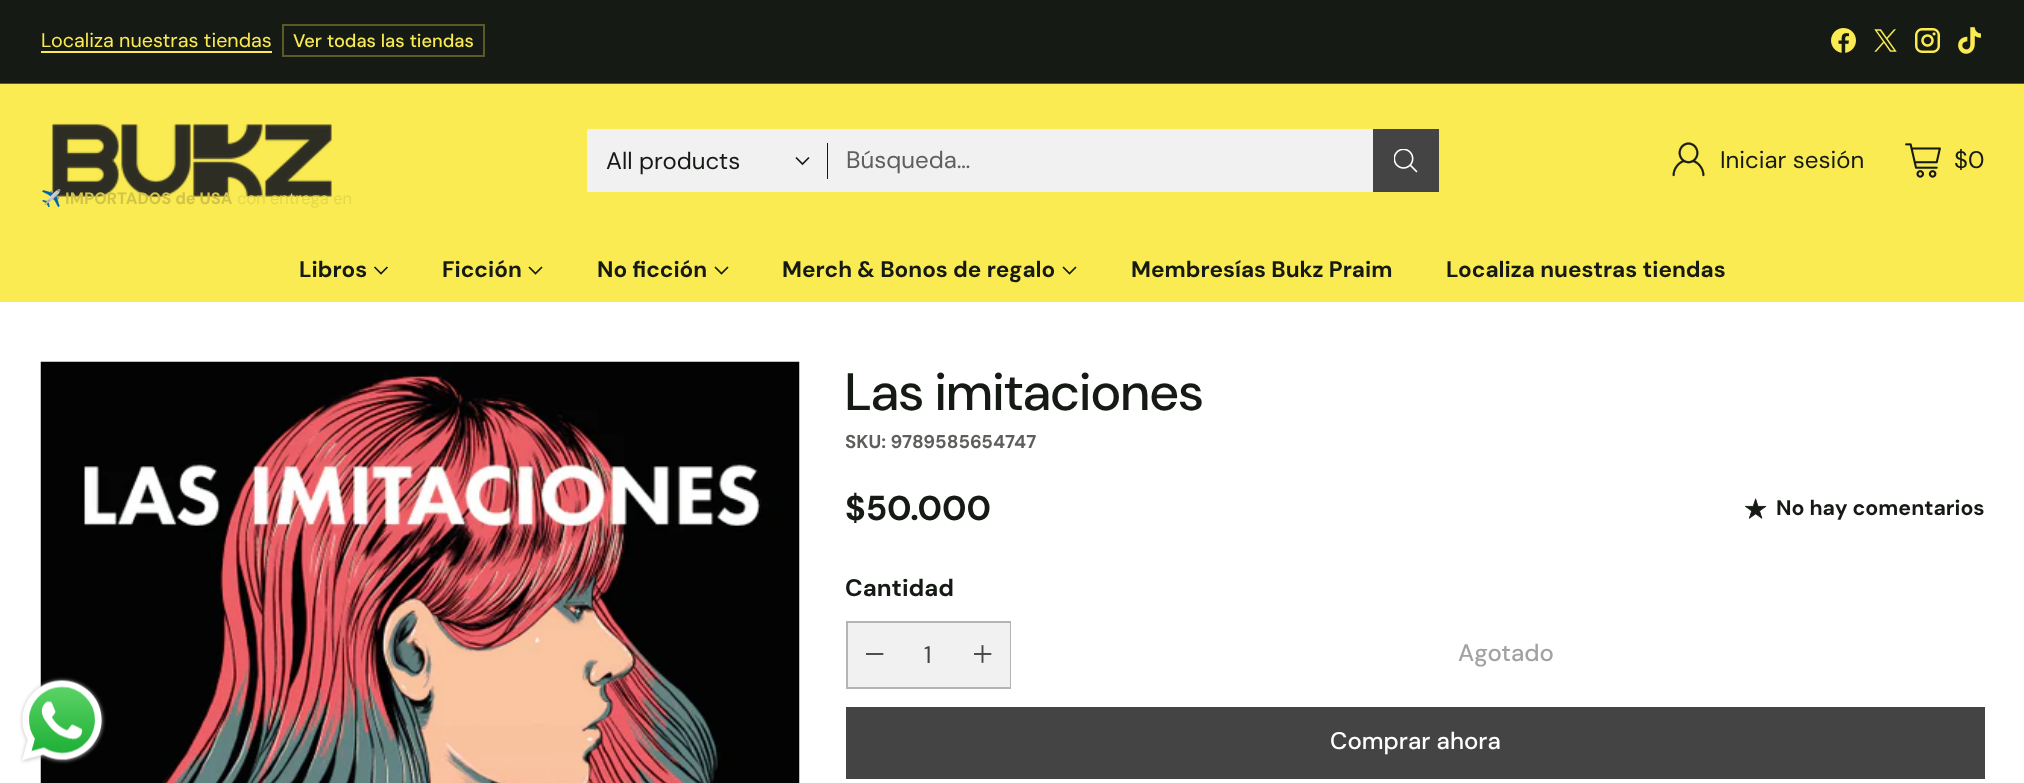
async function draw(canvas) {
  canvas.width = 2024
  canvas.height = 783
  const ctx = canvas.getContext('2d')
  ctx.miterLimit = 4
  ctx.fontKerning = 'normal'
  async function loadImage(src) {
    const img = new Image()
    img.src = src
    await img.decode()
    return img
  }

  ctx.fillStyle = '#fff'
  ctx.fillRect(0, 0, 2024, 783)
  ctx.fillStyle = '#161a15'
  ctx.fillRect(0, 0, 2024, 83)
  ctx.fillStyle = '#5a5927'
  ctx.fillRect(0, 83, 2024, 1)
  ctx.font = '19.75px "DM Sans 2"'
  ctx.fillStyle = '#faeb52'
  ctx.fillText('Localiza nuestras tiendas', 41, 47)
  ctx.fillRect(41, 51, 231, 2)
  ctx.strokeStyle = '#5a5927'
  ctx.lineWidth = 2
  ctx.strokeRect(283, 25, 201, 31)
  ctx.font = '500 18.25px "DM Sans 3"'
  ctx.fillText('Ver todas las tiendas', 293, 47)
  ctx.fillRect(0, 84, 2024, 218)
  ctx.drawImage(await loadImage('image4.png'), 52, 123, 280, 75)
  ctx.font = '16.4px Noto Color Emoji'
  ctx.fillStyle = '#dbce4b'
  ctx.fillText('✈️', 41, 204)
  ctx.font = 'bold 16.4px "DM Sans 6"'
  ctx.fillStyle = '#d1c448'
  ctx.fillText('IMPORTADOS de USA', 65, 204)
  ctx.font = '16.4px "DM Sans 3"'
  ctx.fillStyle = '#e4d74d'
  ctx.fillText('con entrega en', 237, 204)
  ctx.drawImage(await loadImage('image0.png'), 1831, 28, 25, 25)
  ctx.drawImage(await loadImage('image1.png'), 1874, 29, 23, 23)
  ctx.drawImage(await loadImage('image2.png'), 1915, 28, 25, 25)
  ctx.drawImage(await loadImage('image3.png'), 1958, 27, 23, 27)
  ctx.strokeStyle = '#f1f1f1'
  ctx.strokeRect(588, 130, 850, 61)
  ctx.fillStyle = '#f1f1f1'
  ctx.fillRect(589, 131, 784, 59)
  ctx.font = '24px DM Sans'
  ctx.fillStyle = '#161a15'
  ctx.fillText('All products', 606, 169)
  ctx.beginPath()
  ctx.moveTo(796, 157.5)
  ctx.lineTo(802.5, 164)
  ctx.lineTo(809, 157.5)
  ctx.strokeStyle = '#161a15'
  ctx.lineWidth = 1.7
  ctx.stroke()
  ctx.fillRect(827, 143, 1, 36)
  ctx.fillStyle = '#5c5f5b'
  ctx.fillText('Búsqueda…', 846, 168)
  ctx.fillStyle = '#444'
  ctx.fillRect(1373, 129, 66, 63)
  ctx.drawImage(await loadImage('image5.png'), 1394, 149, 24, 24)
  ctx.drawImage(await loadImage('image6.png'), 1672, 142, 33, 35)
  ctx.fillStyle = '#161a15'
  ctx.fillText('Iniciar sesión', 1720, 168)
  ctx.drawImage(await loadImage('image7.png'), 1905, 143, 36, 35)
  ctx.fillText('$0', 1954, 168)
  ctx.font = 'bold 22.5px "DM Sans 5"'
  ctx.fillText('Libros', 299, 277)
  ctx.beginPath()
  ctx.moveTo(374.5, 267)
  ctx.lineTo(381, 273.5)
  ctx.lineTo(387.5, 267)
  ctx.stroke()
  ctx.fillText('Ficción', 442, 277)
  ctx.beginPath()
  ctx.moveTo(529, 267)
  ctx.lineTo(535.5, 273.5)
  ctx.lineTo(542, 267)
  ctx.stroke()
  ctx.fillText('No ficción', 597, 277)
  ctx.beginPath()
  ctx.moveTo(715, 267)
  ctx.lineTo(721.5, 273.5)
  ctx.lineTo(728, 267)
  ctx.stroke()
  ctx.fillText('Merch & Bonos de regalo', 782, 277)
  ctx.beginPath()
  ctx.moveTo(1063, 267)
  ctx.lineTo(1069.5, 273.5)
  ctx.lineTo(1076, 267)
  ctx.stroke()
  ctx.fillText('Membresías Bukz Praim', 1131, 277)
  ctx.fillText('Localiza nuestras tiendas', 1446, 277)
  ctx.drawImage(await loadImage('image8.png'), 40, 361, 760, 422)
  ctx.font = '500 52.5px DM Sans'
  ctx.fillText('Las imitaciones', 845, 410)
  ctx.font = 'bold 18.6px "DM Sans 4"'
  ctx.fillStyle = '#5c5f5b'
  ctx.fillText('SKU: 9789585654747', 845, 448)
  ctx.font = 'bold 34.5px DM Sans'
  ctx.fillStyle = '#161a15'
  ctx.fillText('$50.000', 845, 520)
  ctx.drawImage(await loadImage('image9.png'), 1745, 498, 22, 21)
  ctx.font = 'bold 21.25px "DM Sans 2"'
  ctx.fillText('No hay comentarios', 1776, 515)
  ctx.font = 'bold 24px "DM Sans 3"'
  ctx.fillText('Cantidad', 845, 596)
  ctx.strokeStyle = '#b4b4b4'
  ctx.lineWidth = 2
  ctx.strokeRect(847, 622, 163, 66)
  ctx.fillStyle = '#f1f1f1'
  ctx.fillRect(848, 623, 162, 64)
  ctx.drawImage(await loadImage('image10.png'), 866, 653, 18, 2)
  ctx.font = '24px DM Sans'
  ctx.fillStyle = '#444'
  ctx.fillText('1', 924, 663)
  ctx.drawImage(await loadImage('image11.png'), 974, 645, 18, 18)
  ctx.font = '500 24px "DM Sans 2"'
  ctx.fillStyle = '#a2a3a1'
  ctx.fillText('Agotado', 1458, 661)
  ctx.fillStyle = '#444'
  ctx.fillRect(846, 707, 1139, 72)
  ctx.fillStyle = '#fff'
  ctx.fillText('Comprar ahora', 1330, 749)
  ctx.drawImage(await loadImage('image12.png'), 19, 677, 87, 87)
}

draw(document.querySelector('canvas'))
